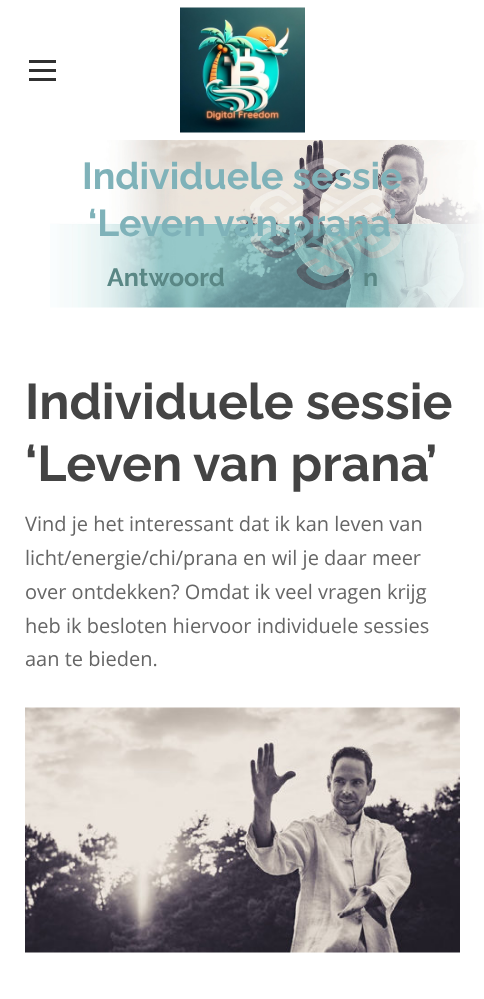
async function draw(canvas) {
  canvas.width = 484
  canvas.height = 999
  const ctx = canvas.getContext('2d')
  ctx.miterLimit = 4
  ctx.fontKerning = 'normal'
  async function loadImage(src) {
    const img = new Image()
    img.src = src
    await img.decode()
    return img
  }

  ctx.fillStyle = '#fff'
  ctx.fillRect(0, 0, 484, 999)
  ctx.fillStyle = '#303030'
  ctx.fillRect(29, 60, 27, 3)
  ctx.fillRect(29, 69, 27, 3)
  ctx.fillRect(29, 78, 27, 3)
  ctx.drawImage(await loadImage('image0.png'), 180, 7, 125, 126)
  ctx.drawImage(await loadImage('image1.png'), 50, 140, 434, 168)
  ctx.font = 'bold 37.5px Raleway'
  ctx.fillStyle = '#7fb2b9'
  ctx.fillText('Individuele sessie', 82, 189)
  ctx.fillText('‘Leven van prana’', 88, 236)
  ctx.font = 'bold 25px Raleway'
  ctx.fillStyle = '#5a8785'
  ctx.fillText('Antwoord', 107, 286)
  ctx.fillText('n', 363, 286)
  ctx.font = 'bold 50px Raleway'
  ctx.fillStyle = '#444'
  ctx.fillText('Individuele sessie', 25, 419)
  ctx.fillText('‘Leven van prana’', 25, 481)
  ctx.font = '20px Open Sans'
  ctx.fillStyle = '#666'
  ctx.fillText('Vind je het interessant dat ik kan leven van', 25, 531)
  ctx.fillText('licht/energie/chi/prana en wil je daar meer', 25, 565)
  ctx.fillText('over ontdekken? Omdat ik veel vragen krijg', 25, 599)
  ctx.fillText('heb ik besloten hiervoor individuele sessies', 25, 633)
  ctx.fillText('aan te bieden.', 25, 666)
  ctx.drawImage(await loadImage('image2.png'), 25, 707, 435, 246)
}

draw(document.querySelector('canvas'))
